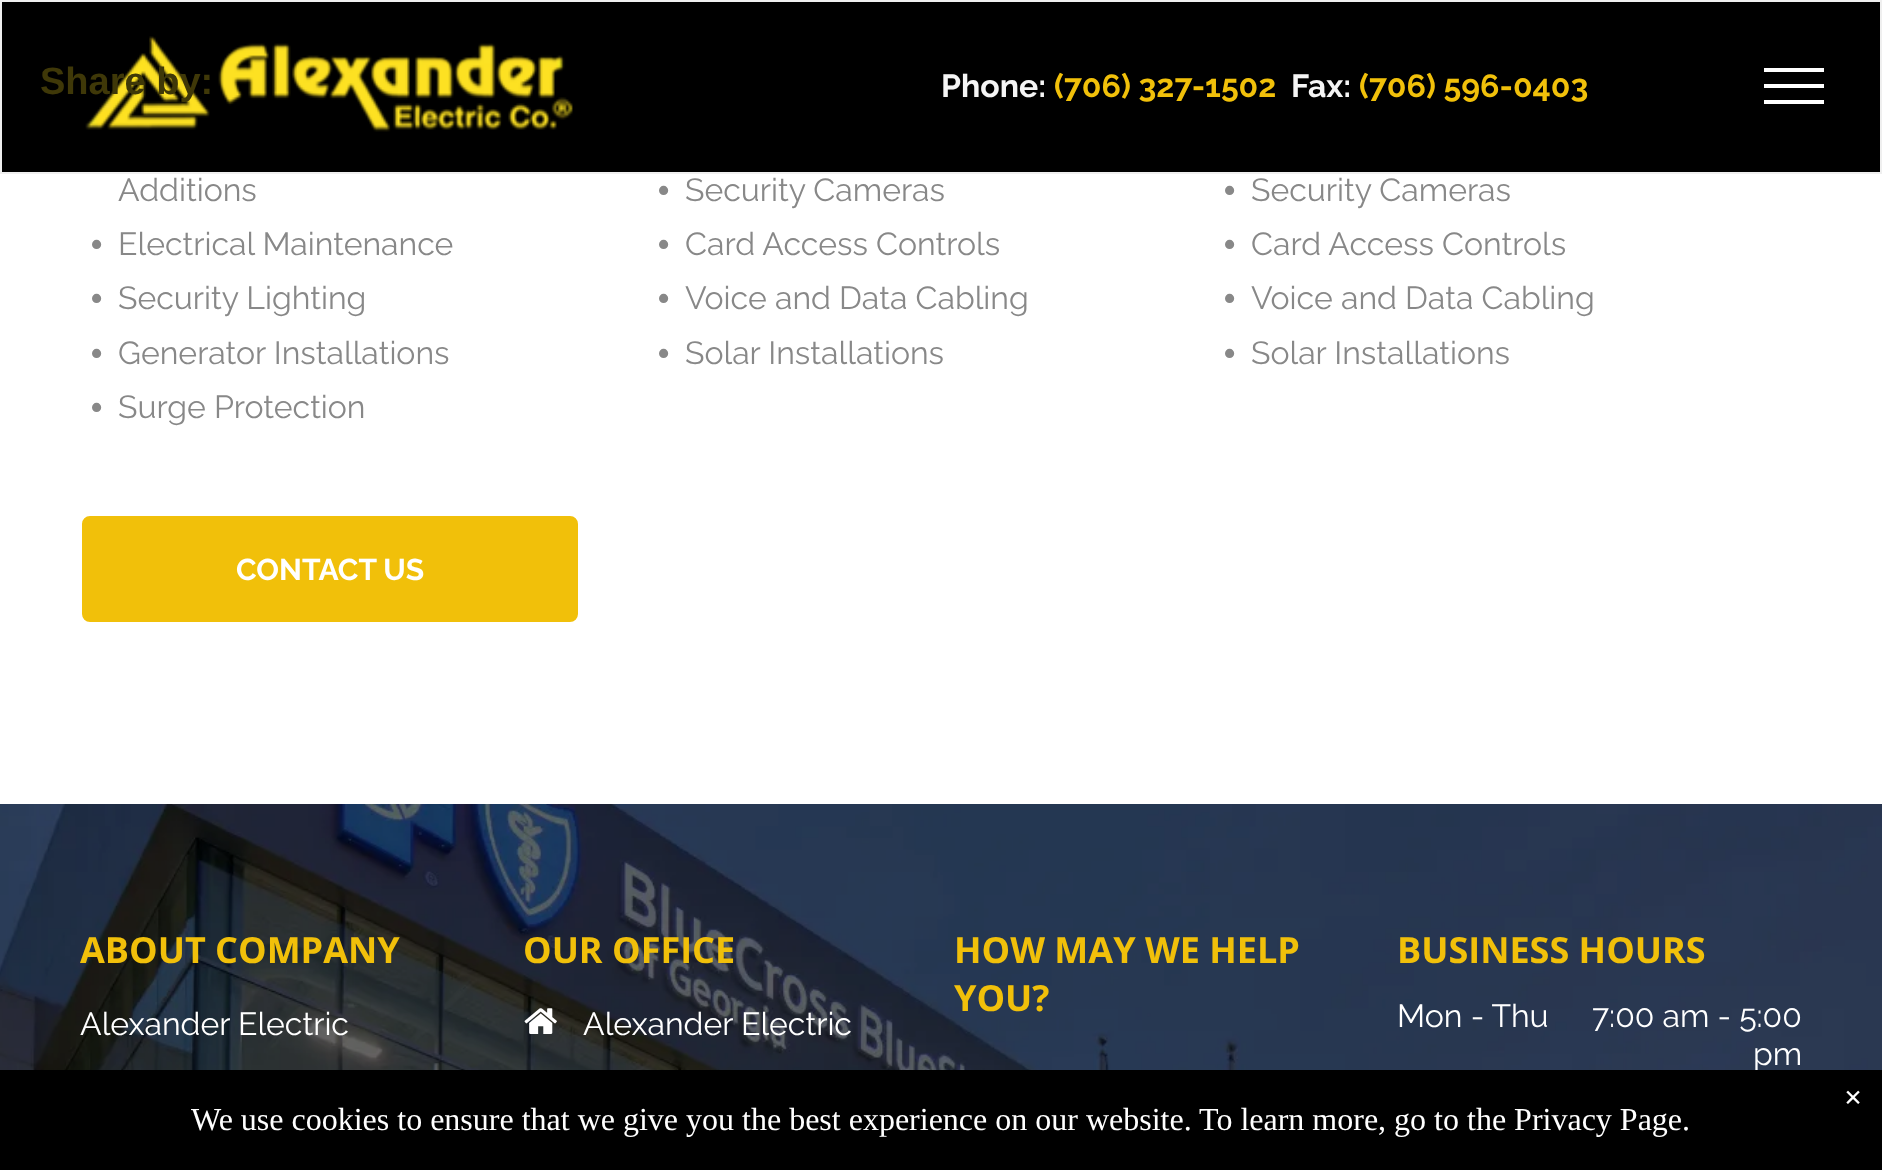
async function draw(canvas) {
  canvas.width = 1882
  canvas.height = 1170
  const ctx = canvas.getContext('2d')
  ctx.miterLimit = 4
  ctx.fontKerning = 'normal'
  async function loadImage(src) {
    const img = new Image()
    img.src = src
    await img.decode()
    return img
  }

  ctx.fillStyle = '#fff'
  ctx.fillRect(0, 0, 1882, 1170)
  ctx.fillStyle = '#000'
  ctx.beginPath()
  ctx.rect(1, 1, 1880, 172)
  ctx.fill()
  ctx.strokeStyle = '#efefef'
  ctx.lineWidth = 2
  ctx.stroke()
  ctx.drawImage(await loadImage('image0.png'), 85, 36, 488, 96)
  ctx.font = 'bold 38px Liberation Sans'
  ctx.fillStyle = '#3f3808'
  ctx.fillText('Share by:', 40, 94)
  ctx.font = 'bold 32px Raleway'
  ctx.fillStyle = '#f5f5f5'
  ctx.fillText('Phone:', 941, 97)
  ctx.fillStyle = '#f1c00a'
  ctx.fillText('(706) 327-1502', 1054, 97)
  ctx.fillStyle = '#f5f5f5'
  ctx.fillText('Fax:', 1291, 97)
  ctx.fillStyle = '#f1c00a'
  ctx.fillText('(706) 596-0403', 1359, 97)
  ctx.fillStyle = '#fff'
  ctx.fillRect(1764, 68, 60, 4)
  ctx.fillRect(1764, 84, 60, 4)
  ctx.fillRect(1764, 100, 60, 4)
  ctx.font = '32px Raleway'
  ctx.fillStyle = '#888'
  ctx.fillText('Additions', 118, 201)
  ctx.font = 'bold 32px Liberation Sans'
  ctx.fillText('•', 91, 255)
  ctx.font = '32px Raleway'
  ctx.fillText('Electrical Maintenance', 118, 255)
  ctx.font = 'bold 32px Liberation Sans'
  ctx.fillText('•', 91, 309)
  ctx.font = '32px Raleway'
  ctx.fillText('Security Lighting', 118, 309)
  ctx.font = 'bold 32px Liberation Sans'
  ctx.fillText('•', 91, 364)
  ctx.font = '32px Raleway'
  ctx.fillText('Generator Installations', 118, 364)
  ctx.font = 'bold 32px Liberation Sans'
  ctx.fillText('•', 91, 418)
  ctx.font = '32px Raleway'
  ctx.fillText('Surge Protection', 118, 418)
  ctx.font = 'bold 32px Liberation Sans'
  ctx.fillText('•', 658, 201)
  ctx.font = '32px Raleway'
  ctx.fillText('Security Cameras', 685, 201)
  ctx.font = 'bold 32px Liberation Sans'
  ctx.fillText('•', 658, 255)
  ctx.font = '32px Raleway'
  ctx.fillText('Card Access Controls', 685, 255)
  ctx.font = 'bold 32px Liberation Sans'
  ctx.fillText('•', 658, 309)
  ctx.font = '32px Raleway'
  ctx.fillText('Voice and Data Cabling', 685, 309)
  ctx.font = 'bold 32px Liberation Sans'
  ctx.fillText('•', 658, 364)
  ctx.font = '32px Raleway'
  ctx.fillText('Solar Installations', 685, 364)
  ctx.font = 'bold 32px Liberation Sans'
  ctx.fillText('•', 1224, 201)
  ctx.font = '32px Raleway'
  ctx.fillText('Security Cameras', 1251, 201)
  ctx.font = 'bold 32px Liberation Sans'
  ctx.fillText('•', 1224, 255)
  ctx.font = '32px Raleway'
  ctx.fillText('Card Access Controls', 1251, 255)
  ctx.font = 'bold 32px Liberation Sans'
  ctx.fillText('•', 1224, 309)
  ctx.font = '32px Raleway'
  ctx.fillText('Voice and Data Cabling', 1251, 309)
  ctx.font = 'bold 32px Liberation Sans'
  ctx.fillText('•', 1224, 364)
  ctx.font = '32px Raleway'
  ctx.fillText('Solar Installations', 1251, 364)
  ctx.fillStyle = '#f1c00a'
  ctx.beginPath()
  ctx.roundRect(81, 515, 498, 108, 9)
  ctx.fill()
  ctx.strokeStyle = '#fff'
  ctx.stroke()
  ctx.font = 'bold 30px Raleway'
  ctx.fillStyle = '#fff'
  ctx.fillText('CONTACT US', 236, 580)
  ctx.drawImage(await loadImage('image1.png'), 0, 804, 1882, 266)
  ctx.font = 'bold 36px Open Sans'
  ctx.fillStyle = '#f1c00a'
  ctx.fillText('ABOUT COMPANY', 80, 963)
  ctx.font = '32px Raleway'
  ctx.fillStyle = '#fff'
  ctx.fillText('Alexander Electric', 80, 1035)
  ctx.font = 'bold 36px Open Sans'
  ctx.fillStyle = '#f1c00a'
  ctx.fillText('OUR OFFICE', 523, 963)
  ctx.drawImage(await loadImage('image2.png'), 524, 1008, 33, 26)
  ctx.font = '32px Raleway'
  ctx.fillStyle = '#fff'
  ctx.fillText('Alexander Electric', 583, 1035)
  ctx.font = 'bold 36px Open Sans'
  ctx.fillStyle = '#f1c00a'
  ctx.fillText('HOW MAY WE HELP', 954, 963)
  ctx.fillText('YOU?', 954, 1011)
  ctx.fillText('BUSINESS HOURS', 1397, 963)
  ctx.font = '32px Raleway'
  ctx.fillStyle = '#fff'
  ctx.fillText('Mon - Thu', 1397, 1027)
  ctx.fillText('7:00 am - 5:00', 1592, 1027)
  ctx.fillText('pm', 1753, 1065)
  ctx.fillStyle = '#000'
  ctx.fillRect(0, 1070, 1882, 100)
  ctx.font = 'bold 32px Liberation Serif'
  ctx.fillStyle = '#fff'
  ctx.fillText('×', 1844, 1108)
  ctx.font = '32px Liberation Serif'
  ctx.fillText('We use cookies to ensure that we give you the best experience on our website. To learn more, go to the Privacy Page.', 191, 1130)
}

draw(document.querySelector('canvas'))
